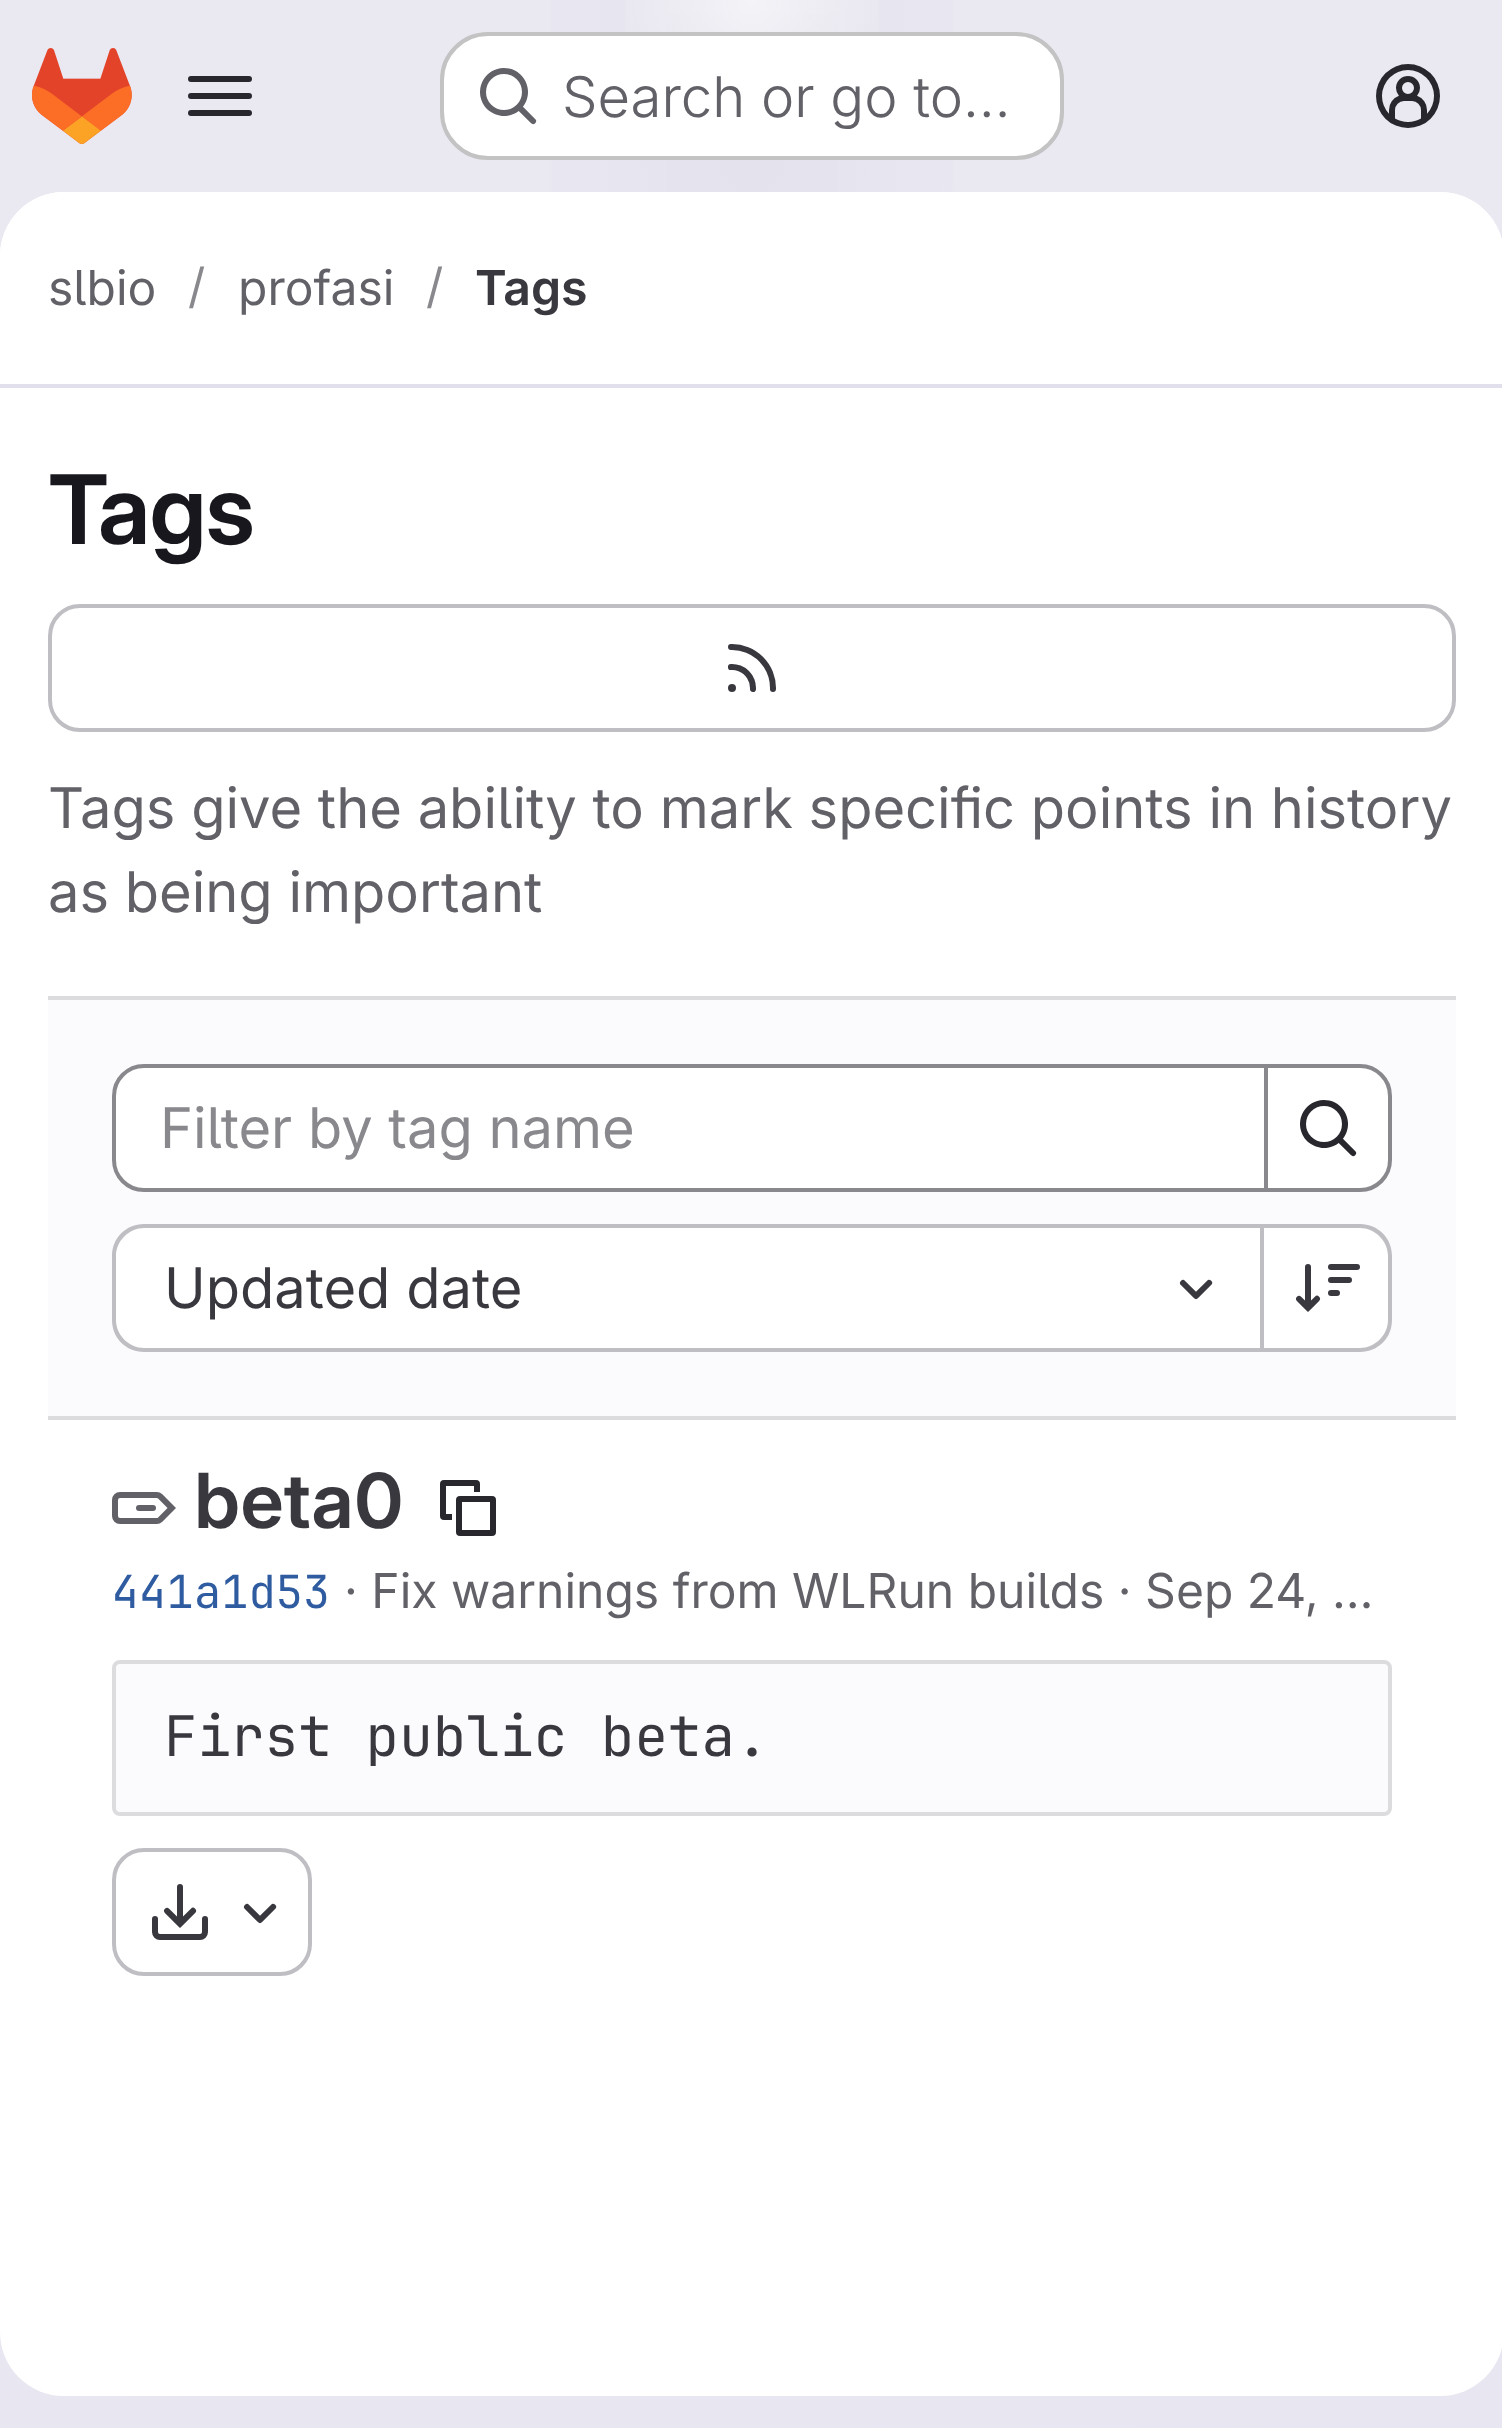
async function draw(canvas) {
  canvas.width = 1502
  canvas.height = 2428
  const ctx = canvas.getContext('2d')
  ctx.miterLimit = 4
  ctx.fontKerning = 'normal'
  async function loadImage(src) {
    const img = new Image()
    img.src = src
    await img.decode()
    return img
  }
  let gradient

  ctx.fillStyle = '#fff'
  ctx.fillRect(0, 0, 1502, 2428)
  gradient = ctx.createLinearGradient(982, 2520, 522, -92)
  gradient.addColorStop(0, '#e8e6f0')
  gradient.addColorStop(0.7, '#eae9f2')
  ctx.fillStyle = gradient
  ctx.fillRect(0, 0, 1502, 2428)
  gradient = ctx.createRadialGradient(752, 0, 0, 752, 0, 752)
  gradient.addColorStop(0, '#e4e2ed')
  gradient.addColorStop(0.37, '#e4e2ed00')
  ctx.fillStyle = gradient
  ctx.beginPath()
  ctx.rect(550, 0, 404, 192)
  ctx.save()
  ctx.clip()
  ctx.scale(1, 2428 / 752)
  ctx.fillRect(0, 0, 1502, 752)
  ctx.restore()
  gradient = ctx.createRadialGradient(752, 0, 0, 752, 0, 752)
  gradient.addColorStop(0, '#e4e2ec')
  gradient.addColorStop(0.27, '#e4e2ec00')
  ctx.fillStyle = gradient
  ctx.beginPath()
  ctx.rect(667, 14, 170, 178)
  ctx.save()
  ctx.clip()
  ctx.scale(1, 2428 / 752)
  ctx.fillRect(0, 0, 1502, 752)
  ctx.restore()
  gradient = ctx.createRadialGradient(752, 0, 0, 752, 0, 2542)
  gradient.addColorStop(0, '#ffffff99')
  gradient.addColorStop(0.06, '#ffffff00')
  ctx.fillStyle = gradient
  ctx.fillRect(625, 0, 254, 32)
  ctx.drawImage(await loadImage('image0.png'), 32, 48, 100, 96)
  ctx.drawImage(await loadImage('image1.png'), 188, 76, 64, 40)
  ctx.fillStyle = '#fff'
  ctx.beginPath()
  ctx.roundRect(440, 32, 624, 128, 48)
  ctx.fill()
  ctx.beginPath()
  ctx.roundRect(442, 34, 620, 124, 46)
  ctx.strokeStyle = '#0505063d'
  ctx.lineWidth = 4
  ctx.stroke()
  ctx.drawImage(await loadImage('image2.png'), 480, 68, 57, 57)
  ctx.font = '300 56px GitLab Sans'
  ctx.fillStyle = '#626168'
  ctx.fillText('Search or go to…', 562, 117)
  ctx.drawImage(await loadImage('image3.png'), 1376, 64, 64, 64)
  ctx.fillStyle = '#fff'
  ctx.beginPath()
  ctx.roundRect(0, 192, 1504, 2204, 64)
  ctx.fill()
  ctx.beginPath()
  ctx.moveTo(64, 192)
  ctx.lineTo(1440, 192)
  ctx.bezierCurveTo(1475.5, 192, 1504, 220.5, 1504, 256)
  ctx.lineTo(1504, 388)
  ctx.lineTo(0, 388)
  ctx.lineTo(0, 256)
  ctx.bezierCurveTo(0, 220.5, 28.5, 192, 64, 192)
  ctx.closePath()
  ctx.fill()
  ctx.fillStyle = '#e1dfec'
  ctx.fillRect(0, 384, 1502, 4)
  ctx.font = '48px GitLab Sans'
  ctx.fillStyle = '#626168'
  ctx.fillText('slbio', 48, 305)
  ctx.fillStyle = '#89888d'
  ctx.fillText('/', 188, 303)
  ctx.fillStyle = '#626168'
  ctx.fillText('profasi', 238, 305)
  ctx.fillStyle = '#89888d'
  ctx.fillText('/', 426, 303)
  ctx.font = '600 48px "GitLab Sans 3"'
  ctx.fillStyle = '#3a383f'
  ctx.fillText('Tags', 475, 305)
  ctx.letterSpacing = '-1px'
  ctx.font = '600 96px GitLab Sans'
  ctx.fillStyle = '#18171d'
  ctx.fillText('Tags', 48, 544)
  ctx.beginPath()
  ctx.roundRect(50, 606, 1404, 124, 30)
  ctx.strokeStyle = '#bfbfc3'
  ctx.stroke()
  ctx.drawImage(await loadImage('image4.png'), 728, 644, 48, 48)
  ctx.letterSpacing = '0px'
  ctx.font = '56px GitLab Sans'
  ctx.fillStyle = '#626168'
  ctx.fillText('Tags give the ability to mark specific points in history', 48, 828)
  ctx.fillText('as being important', 48, 912)
  ctx.fillStyle = '#fbfafd'
  ctx.fillRect(48, 1000, 1408, 416)
  ctx.fillStyle = '#dcdcde'
  ctx.fillRect(48, 996, 1408, 4)
  ctx.fillRect(48, 1416, 1408, 4)
  ctx.fillStyle = '#fff'
  ctx.beginPath()
  ctx.roundRect(114, 1066, 1152, 124, [30, 0, 0, 30])
  ctx.fill()
  ctx.strokeStyle = '#89888d'
  ctx.stroke()
  ctx.fillStyle = '#89888d'
  ctx.fillText('Filter by tag name', 160, 1148)
  ctx.fillStyle = '#fff'
  ctx.beginPath()
  ctx.roundRect(1266, 1066, 124, 124, [0, 30, 30, 0])
  ctx.fill()
  ctx.stroke()
  ctx.drawImage(await loadImage('image5.png'), 1300, 1100, 57, 57)
  ctx.beginPath()
  ctx.roundRect(116, 1228, 1144, 120, [28, 0, 0, 28])
  ctx.fill()
  ctx.fillStyle = '#bfbfc3'
  ctx.beginPath()
  ctx.moveTo(144, 1224)
  ctx.lineTo(1260, 1224)
  ctx.lineTo(1260, 1352)
  ctx.lineTo(144, 1352)
  ctx.bezierCurveTo(126, 1352, 112, 1338, 112, 1320)
  ctx.lineTo(112, 1256)
  ctx.bezierCurveTo(112, 1238, 126, 1224, 144, 1224)
  ctx.closePath()
  ctx.moveTo(144, 1228)
  ctx.lineTo(1260, 1228)
  ctx.lineTo(1260, 1348)
  ctx.lineTo(144, 1348)
  ctx.bezierCurveTo(129, 1348, 116, 1335, 116, 1320)
  ctx.lineTo(116, 1256)
  ctx.bezierCurveTo(116, 1241, 129, 1228, 144, 1228)
  ctx.closePath()
  ctx.fill('evenodd')
  ctx.fillStyle = '#3a383f'
  ctx.fillText('Updated date', 164, 1308)
  ctx.drawImage(await loadImage('image6.png'), 1179, 1279, 34, 21)
  ctx.fillStyle = '#fff'
  ctx.beginPath()
  ctx.roundRect(1264, 1228, 124, 120, [0, 28, 28, 0])
  ctx.fill()
  ctx.fillStyle = '#bfbfc3'
  ctx.beginPath()
  ctx.moveTo(1264, 1224)
  ctx.lineTo(1360, 1224)
  ctx.bezierCurveTo(1378, 1224, 1392, 1238, 1392, 1256)
  ctx.lineTo(1392, 1320)
  ctx.bezierCurveTo(1392, 1338, 1378, 1352, 1360, 1352)
  ctx.lineTo(1264, 1352)
  ctx.closePath()
  ctx.moveTo(1264, 1228)
  ctx.lineTo(1360, 1228)
  ctx.bezierCurveTo(1375, 1228, 1388, 1241, 1388, 1256)
  ctx.lineTo(1388, 1320)
  ctx.bezierCurveTo(1388, 1335, 1375, 1348, 1360, 1348)
  ctx.lineTo(1264, 1348)
  ctx.closePath()
  ctx.fill('evenodd')
  ctx.fillRect(1260, 1224, 4, 128)
  ctx.drawImage(await loadImage('image7.png'), 1296, 1264, 64, 48)
  ctx.drawImage(await loadImage('image8.png'), 112, 1492, 64, 32)
  ctx.font = '600 76px "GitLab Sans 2"'
  ctx.fillStyle = '#3a383f'
  ctx.fillText('beta0', 194, 1528)
  ctx.drawImage(await loadImage('image9.png'), 440, 1480, 56, 56)
  ctx.font = '45.5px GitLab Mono'
  ctx.fillStyle = '#2f5ca0'
  ctx.fillText('441a1d53', 112, 1608)
  ctx.font = '48px GitLab Sans'
  ctx.fillStyle = '#626168'
  ctx.fillText('· Fix warnings from WLRun builds · Sep 24, …', 344, 1608)
  ctx.fillStyle = '#fbfafd'
  ctx.beginPath()
  ctx.roundRect(114, 1662, 1276, 152, 6)
  ctx.fill()
  ctx.strokeStyle = '#dcdcde'
  ctx.stroke()
  ctx.font = '56px GitLab Mono'
  ctx.fillStyle = '#3a383f'
  ctx.fillText('First public beta.', 164, 1756)
  ctx.beginPath()
  ctx.roundRect(114, 1850, 196, 124, 30)
  ctx.strokeStyle = '#bfbfc3'
  ctx.stroke()
  ctx.drawImage(await loadImage('image10.png'), 152, 1884, 56, 56)
  ctx.drawImage(await loadImage('image11.png'), 243, 1903, 34, 21)
}

draw(document.querySelector('canvas'))
